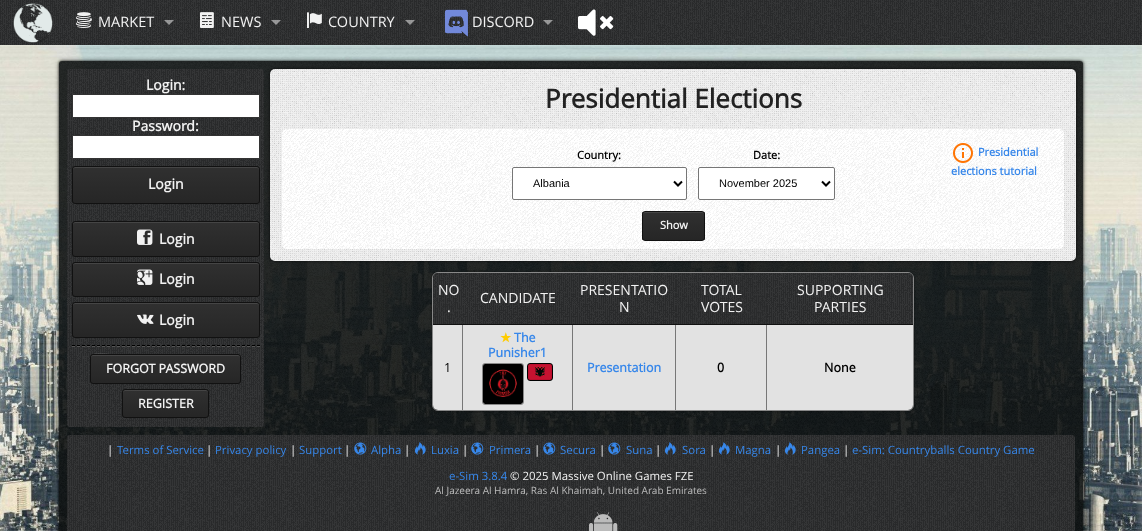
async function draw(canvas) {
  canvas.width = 1142
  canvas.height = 531
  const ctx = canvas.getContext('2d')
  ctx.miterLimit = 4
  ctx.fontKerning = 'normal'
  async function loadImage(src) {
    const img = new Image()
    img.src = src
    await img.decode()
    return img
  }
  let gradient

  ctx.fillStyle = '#fff'
  ctx.fillRect(0, 0, 1142, 531)
  ctx.drawImage(await loadImage('image0.png'), 0, 45, 1142, 486)
  ctx.save()
  ctx.beginPath()
  ctx.moveTo(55, 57)
  ctx.lineTo(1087, 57)
  ctx.lineTo(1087, 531)
  ctx.lineTo(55, 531)
  ctx.closePath()
  ctx.moveTo(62, 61)
  ctx.lineTo(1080, 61)
  ctx.bezierCurveTo(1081.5, 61, 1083, 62.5, 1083, 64)
  ctx.lineTo(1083, 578)
  ctx.bezierCurveTo(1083, 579.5, 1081.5, 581, 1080, 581)
  ctx.lineTo(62, 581)
  ctx.bezierCurveTo(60.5, 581, 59, 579.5, 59, 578)
  ctx.lineTo(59, 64)
  ctx.bezierCurveTo(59, 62.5, 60.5, 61, 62, 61)
  ctx.closePath()
  ctx.clip('evenodd')
  ctx.fillStyle = '#00000099'
  ctx.filter = 'blur(1px)'
  ctx.beginPath()
  ctx.roundRect(59, 61, 1024, 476, 3)
  ctx.fill()
  ctx.filter = 'none'
  ctx.restore()
  ctx.save()
  ctx.beginPath()
  ctx.moveTo(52, 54)
  ctx.lineTo(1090, 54)
  ctx.lineTo(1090, 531)
  ctx.lineTo(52, 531)
  ctx.closePath()
  ctx.moveTo(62, 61)
  ctx.lineTo(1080, 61)
  ctx.bezierCurveTo(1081.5, 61, 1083, 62.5, 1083, 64)
  ctx.lineTo(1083, 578)
  ctx.bezierCurveTo(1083, 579.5, 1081.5, 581, 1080, 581)
  ctx.lineTo(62, 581)
  ctx.bezierCurveTo(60.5, 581, 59, 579.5, 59, 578)
  ctx.lineTo(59, 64)
  ctx.bezierCurveTo(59, 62.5, 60.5, 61, 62, 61)
  ctx.closePath()
  ctx.clip('evenodd')
  ctx.fillStyle = '#00000099'
  ctx.filter = 'blur(2px)'
  ctx.beginPath()
  ctx.roundRect(59, 61, 1024, 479, 3)
  ctx.fill()
  ctx.filter = 'none'
  ctx.restore()
  ctx.fillStyle = '#0c1010e6'
  ctx.beginPath()
  ctx.roundRect(59, 61, 1024, 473, 3)
  ctx.fill()
  ctx.drawImage(await loadImage('image1.png'), 59, 61, 1024, 470)
  ctx.drawImage(await loadImage('image2.png'), 0, 0, 1142, 45)
  ctx.drawImage(await loadImage('image3.png'), 13, 3, 40, 40)
  ctx.drawImage(await loadImage('image4.png'), 76, 12, 16, 16)
  ctx.font = '14.5px Open Sans'
  ctx.fillStyle = '#f2f2f2'
  ctx.fillText('MARKET', 98, 27)
  ctx.fillStyle = '#ffffff80'
  ctx.beginPath()
  ctx.moveTo(164, 20)
  ctx.lineTo(174, 20)
  ctx.lineTo(169, 25)
  ctx.closePath()
  ctx.fill()
  ctx.drawImage(await loadImage('image5.png'), 200, 12, 14, 16)
  ctx.fillStyle = '#f2f2f2'
  ctx.fillText('NEWS', 221, 27)
  ctx.fillStyle = '#ffffff80'
  ctx.beginPath()
  ctx.moveTo(271, 20)
  ctx.lineTo(281, 20)
  ctx.lineTo(276, 25)
  ctx.closePath()
  ctx.fill()
  ctx.drawImage(await loadImage('image6.png'), 307, 12, 15, 16)
  ctx.fillStyle = '#f2f2f2'
  ctx.fillText('COUNTRY', 328, 27)
  ctx.fillStyle = '#ffffff80'
  ctx.beginPath()
  ctx.moveTo(405, 20)
  ctx.lineTo(415, 20)
  ctx.lineTo(410, 25)
  ctx.closePath()
  ctx.fill()
  ctx.drawImage(await loadImage('image7.png'), 444, 9, 24, 28)
  ctx.fillStyle = '#f2f2f2'
  ctx.fillText('DISCORD', 472, 27)
  ctx.fillStyle = '#ffffff80'
  ctx.beginPath()
  ctx.moveTo(543, 20)
  ctx.lineTo(553, 20)
  ctx.lineTo(548, 25)
  ctx.closePath()
  ctx.fill()
  ctx.drawImage(await loadImage('image8.png'), 578, 9, 36, 27)
  ctx.drawImage(await loadImage('image9.png'), 67, 69, 197, 358)
  ctx.font = 'bold 14px Open Sans'
  ctx.fillStyle = '#f2f2f2'
  ctx.fillText('Login:', 146, 90)
  ctx.fillStyle = '#00000099'
  ctx.filter = 'blur(0.5px)'
  ctx.beginPath()
  ctx.rect(72, 94, 188, 24)
  ctx.fill()
  ctx.filter = 'none'
  ctx.fillStyle = '#fff'
  ctx.beginPath()
  ctx.rect(72.5, 94.5, 187, 23)
  ctx.fill()
  ctx.strokeStyle = '#333'
  ctx.stroke()
  ctx.fillStyle = '#f2f2f2'
  ctx.fillText('Password:', 132, 131)
  ctx.fillStyle = '#00000099'
  ctx.filter = 'blur(0.5px)'
  ctx.beginPath()
  ctx.rect(72, 135, 188, 24)
  ctx.fill()
  ctx.filter = 'none'
  ctx.fillStyle = '#fff'
  ctx.beginPath()
  ctx.rect(72.5, 135.5, 187, 23)
  ctx.fill()
  ctx.stroke()
  ctx.save()
  ctx.beginPath()
  ctx.roundRect(72, 166, 188, 38, 3)
  ctx.clip()
  gradient = ctx.createLinearGradient(166, 167, 166, 203)
  gradient.addColorStop(0, '#303030')
  gradient.addColorStop(1, '#262626')
  ctx.fillStyle = gradient
  ctx.fillRect(72, 167, 188, 36)
  ctx.restore()
  ctx.fillStyle = '#454545'
  ctx.beginPath()
  ctx.moveTo(75, 168)
  ctx.lineTo(257, 168)
  ctx.bezierCurveTo(258, 168, 259, 169, 259, 170)
  ctx.lineTo(259, 169)
  ctx.bezierCurveTo(259, 168, 258, 167, 257, 167)
  ctx.lineTo(75, 167)
  ctx.bezierCurveTo(74, 167, 73, 168, 73, 169)
  ctx.lineTo(73, 170)
  ctx.bezierCurveTo(73, 169, 74, 168, 75, 168)
  ctx.closePath()
  ctx.fill()
  ctx.beginPath()
  ctx.roundRect(72.5, 166.5, 187, 37, 2.5)
  ctx.strokeStyle = '#111'
  ctx.stroke()
  ctx.fillStyle = '#f2f2f2'
  ctx.fillText('Login', 148, 189)
  ctx.save()
  ctx.beginPath()
  ctx.roundRect(72, 221, 188, 36, 3)
  ctx.clip()
  gradient = ctx.createLinearGradient(166, 222, 166, 256)
  gradient.addColorStop(0, '#303030')
  gradient.addColorStop(1, '#262626')
  ctx.fillStyle = gradient
  ctx.fillRect(72, 222, 188, 34)
  ctx.restore()
  ctx.fillStyle = '#454545'
  ctx.beginPath()
  ctx.moveTo(75, 223)
  ctx.lineTo(257, 223)
  ctx.bezierCurveTo(258, 223, 259, 224, 259, 225)
  ctx.lineTo(259, 224)
  ctx.bezierCurveTo(259, 223, 258, 222, 257, 222)
  ctx.lineTo(75, 222)
  ctx.bezierCurveTo(74, 222, 73, 223, 73, 224)
  ctx.lineTo(73, 225)
  ctx.bezierCurveTo(73, 224, 74, 223, 75, 223)
  ctx.closePath()
  ctx.fill()
  ctx.beginPath()
  ctx.roundRect(72.5, 221.5, 187, 35, 2.5)
  ctx.stroke()
  ctx.drawImage(await loadImage('image10.png'), 137, 229, 16, 16)
  ctx.fillStyle = '#f2f2f2'
  ctx.fillText('Login', 159, 244)
  ctx.save()
  ctx.beginPath()
  ctx.roundRect(72, 262, 188, 35, 3)
  ctx.clip()
  gradient = ctx.createLinearGradient(166, 263, 166, 296)
  gradient.addColorStop(0, '#303030')
  gradient.addColorStop(1, '#262626')
  ctx.fillStyle = gradient
  ctx.fillRect(72, 263, 188, 33)
  ctx.restore()
  ctx.fillStyle = '#454545'
  ctx.beginPath()
  ctx.moveTo(75, 264)
  ctx.lineTo(257, 264)
  ctx.bezierCurveTo(258, 264, 259, 265, 259, 266)
  ctx.lineTo(259, 265)
  ctx.bezierCurveTo(259, 264, 258, 263, 257, 263)
  ctx.lineTo(75, 263)
  ctx.bezierCurveTo(74, 263, 73, 264, 73, 265)
  ctx.lineTo(73, 266)
  ctx.bezierCurveTo(73, 265, 74, 264, 75, 264)
  ctx.closePath()
  ctx.fill()
  ctx.beginPath()
  ctx.roundRect(72.5, 262.5, 187, 34, 2.5)
  ctx.stroke()
  ctx.drawImage(await loadImage('image11.png'), 137, 269, 16, 16)
  ctx.fillStyle = '#f2f2f2'
  ctx.fillText('Login', 159, 284)
  ctx.save()
  ctx.beginPath()
  ctx.roundRect(72, 302, 188, 36, 3)
  ctx.clip()
  gradient = ctx.createLinearGradient(166, 303, 166, 337)
  gradient.addColorStop(0, '#303030')
  gradient.addColorStop(1, '#262626')
  ctx.fillStyle = gradient
  ctx.fillRect(72, 303, 188, 34)
  ctx.restore()
  ctx.fillStyle = '#454545'
  ctx.beginPath()
  ctx.moveTo(75, 304)
  ctx.lineTo(257, 304)
  ctx.bezierCurveTo(258, 304, 259, 305, 259, 306)
  ctx.lineTo(259, 305)
  ctx.bezierCurveTo(259, 304, 258, 303, 257, 303)
  ctx.lineTo(75, 303)
  ctx.bezierCurveTo(74, 303, 73, 304, 73, 305)
  ctx.lineTo(73, 306)
  ctx.bezierCurveTo(73, 305, 74, 304, 75, 304)
  ctx.closePath()
  ctx.fill()
  ctx.beginPath()
  ctx.roundRect(72.5, 302.5, 187, 35, 2.5)
  ctx.stroke()
  ctx.drawImage(await loadImage('image12.png'), 137, 314, 17, 10)
  ctx.fillStyle = '#f2f2f2'
  ctx.fillText('Login', 159, 325)
  ctx.beginPath()
  ctx.moveTo(72, 345.5)
  ctx.lineTo(260, 345.5)
  ctx.strokeStyle = '#000'
  ctx.setLineDash([3, 2])
  ctx.stroke()
  ctx.beginPath()
  ctx.moveTo(72, 346.5)
  ctx.lineTo(260, 346.5)
  ctx.strokeStyle = '#555'
  ctx.stroke()
  ctx.save()
  ctx.beginPath()
  ctx.roundRect(90, 354, 151, 30, 3)
  ctx.clip()
  gradient = ctx.createLinearGradient(166, 355, 166, 383)
  gradient.addColorStop(0, '#303030')
  gradient.addColorStop(1, '#262626')
  ctx.fillStyle = gradient
  ctx.fillRect(90, 355, 151, 28)
  ctx.restore()
  ctx.fillStyle = '#ffffff1a'
  ctx.beginPath()
  ctx.moveTo(93, 356)
  ctx.lineTo(238, 356)
  ctx.bezierCurveTo(239, 356, 240, 357, 240, 358)
  ctx.bezierCurveTo(240, 357, 240, 356, 239, 355)
  ctx.lineTo(117, 355)
  ctx.bezierCurveTo(114, 355, 91, 349, 91, 358)
  ctx.bezierCurveTo(91, 357, 92, 356, 93, 356)
  ctx.closePath()
  ctx.fill()
  ctx.beginPath()
  ctx.roundRect(90.5, 354.5, 150, 29, 2.5)
  ctx.strokeStyle = '#111'
  ctx.setLineDash([])
  ctx.stroke()
  ctx.font = 'bold 12.5px Open Sans'
  ctx.fillStyle = '#f2f2f2'
  ctx.fillText('FORGOT PASSWORD', 106, 373)
  ctx.save()
  ctx.beginPath()
  ctx.roundRect(122, 389, 87, 29, 3)
  ctx.clip()
  gradient = ctx.createLinearGradient(166, 390, 166, 417)
  gradient.addColorStop(0, '#303030')
  gradient.addColorStop(1, '#262626')
  ctx.fillStyle = gradient
  ctx.fillRect(122, 390, 87, 27)
  ctx.restore()
  ctx.fillStyle = '#ffffff1a'
  ctx.beginPath()
  ctx.moveTo(125, 391)
  ctx.lineTo(206, 391)
  ctx.bezierCurveTo(207, 391, 208, 392, 208, 393)
  ctx.bezierCurveTo(208, 386, 195, 390, 192, 390)
  ctx.lineTo(138, 390)
  ctx.bezierCurveTo(136, 390, 123, 386, 123, 393)
  ctx.bezierCurveTo(123, 392, 124, 391, 125, 391)
  ctx.closePath()
  ctx.fill()
  ctx.beginPath()
  ctx.roundRect(122.5, 389.5, 86, 28, 2.5)
  ctx.stroke()
  ctx.fillStyle = '#f2f2f2'
  ctx.fillText('REGISTER', 138, 408)
  ctx.fillStyle = '#000000b3'
  ctx.filter = 'blur(1.5px)'
  ctx.beginPath()
  ctx.roundRect(270, 69, 806, 192, 5)
  ctx.fill()
  ctx.filter = 'none'
  ctx.drawImage(await loadImage('image13.png'), 270, 69, 806, 192)
  ctx.font = 'bold 26px Open Sans'
  ctx.fillStyle = '#222'
  ctx.fillText('Presidential Elections', 545, 108)
  ctx.drawImage(await loadImage('image14.png'), 282, 129, 782, 120)
  ctx.font = 'bold 11px Open Sans'
  ctx.fillStyle = '#000'
  ctx.fillText('Country:', 577, 159)
  ctx.fillStyle = '#fff'
  ctx.beginPath()
  ctx.roundRect(512.5, 167.5, 174, 32, 1.5)
  ctx.fill()
  ctx.strokeStyle = '#767676'
  ctx.stroke()
  ctx.beginPath()
  ctx.moveTo(674, 181.5)
  ctx.lineTo(678, 185.5)
  ctx.lineTo(682, 181.5)
  ctx.strokeStyle = '#000'
  ctx.lineWidth = 2
  ctx.stroke()
  ctx.font = '11px Liberation Sans'
  ctx.fillStyle = '#000'
  ctx.fillText('Albania', 533, 187)
  ctx.font = 'bold 11px Open Sans'
  ctx.fillText('Date:', 753, 159)
  ctx.fillStyle = '#fff'
  ctx.beginPath()
  ctx.roundRect(698.5, 167.5, 136, 32, 1.5)
  ctx.fill()
  ctx.strokeStyle = '#767676'
  ctx.lineWidth = 1
  ctx.stroke()
  ctx.beginPath()
  ctx.moveTo(822, 181.5)
  ctx.lineTo(826, 185.5)
  ctx.lineTo(830, 181.5)
  ctx.strokeStyle = '#000'
  ctx.lineWidth = 2
  ctx.stroke()
  ctx.font = '11px Liberation Sans'
  ctx.fillStyle = '#000'
  ctx.fillText('November 2025', 719, 187)
  ctx.save()
  ctx.beginPath()
  ctx.roundRect(642, 211, 63, 30, 3)
  ctx.clip()
  gradient = ctx.createLinearGradient(674, 212, 674, 240)
  gradient.addColorStop(0, '#303030')
  gradient.addColorStop(1, '#262626')
  ctx.fillStyle = gradient
  ctx.fillRect(642, 212, 63, 28)
  ctx.restore()
  ctx.fillStyle = '#ffffff1a'
  ctx.beginPath()
  ctx.moveTo(645, 213)
  ctx.lineTo(702, 213)
  ctx.bezierCurveTo(703, 213, 704, 214, 704, 215)
  ctx.bezierCurveTo(704, 209, 696, 212, 692, 212)
  ctx.lineTo(654, 212)
  ctx.bezierCurveTo(651, 212, 643, 209, 643, 215)
  ctx.bezierCurveTo(643, 214, 644, 213, 645, 213)
  ctx.closePath()
  ctx.fill()
  ctx.beginPath()
  ctx.roundRect(642.5, 211.5, 62, 29, 2.5)
  ctx.strokeStyle = '#111'
  ctx.lineWidth = 1
  ctx.stroke()
  ctx.font = 'bold 11px Open Sans'
  ctx.fillStyle = '#f2f2f2'
  ctx.fillText('Show', 660, 229)
  ctx.drawImage(await loadImage('image15.png'), 953, 143, 20, 20)
  ctx.fillStyle = '#3787ea'
  ctx.fillText('Presidential', 978, 156)
  ctx.fillText('elections tutorial', 951, 175)
  ctx.fillStyle = '#00000066'
  ctx.filter = 'blur(1px)'
  ctx.beginPath()
  ctx.roundRect(432, 272, 482, 139, 6)
  ctx.fill()
  ctx.filter = 'none'
  ctx.beginPath()
  ctx.roundRect(432.5, 272.5, 481, 138, 5.5)
  ctx.strokeStyle = '#888'
  ctx.stroke()
  ctx.drawImage(await loadImage('image16.png'), 433, 273, 30, 51)
  ctx.fillStyle = '#111'
  ctx.fillRect(433, 324, 480, 1)
  ctx.font = '14px Open Sans'
  ctx.fillStyle = '#f2f2f2'
  ctx.fillText('NO', 438, 295)
  ctx.fillText('.', 447, 312)
  ctx.drawImage(await loadImage('image17.png'), 463, 273, 110, 51)
  ctx.fillText('CANDIDATE', 480, 303)
  ctx.drawImage(await loadImage('image18.png'), 573, 273, 103, 51)
  ctx.fillText('PRESENTATIO', 580, 295)
  ctx.fillText('N', 619, 312)
  ctx.drawImage(await loadImage('image19.png'), 676, 273, 91, 51)
  ctx.fillText('TOTAL', 701, 295)
  ctx.fillText('VOTES', 701, 312)
  ctx.drawImage(await loadImage('image20.png'), 767, 273, 146, 51)
  ctx.fillText('SUPPORTING', 797, 295)
  ctx.fillText('PARTIES', 814, 312)
  ctx.fillStyle = '#e2e2e2'
  ctx.fillRect(463, 325, 109, 85)
  ctx.fillStyle = '#777'
  ctx.fillRect(572, 325, 1, 85)
  ctx.font = 'bold 12.5px DejaVu Sans'
  ctx.fillStyle = '#fc0'
  ctx.fillText('★', 500, 342)
  ctx.font = 'bold 12.5px Open Sans'
  ctx.fillStyle = '#3787ea'
  ctx.fillText('The', 514, 342)
  ctx.fillText('Punisher1', 488, 357)
  ctx.beginPath()
  ctx.roundRect(482.5, 363.5, 41, 41, 2.5)
  ctx.stroke()
  ctx.drawImage(await loadImage('image21.png'), 483, 364, 40, 40)
  ctx.drawImage(await loadImage('image22.png'), 528, 364, 24, 16)
  ctx.beginPath()
  ctx.roundRect(527.5, 363.5, 25, 17, 2.5)
  ctx.strokeStyle = '#000'
  ctx.stroke()
  ctx.fillStyle = '#e2e2e2'
  ctx.beginPath()
  ctx.roundRect(433, 325, 30, 85, [0, 0, 0, 5])
  ctx.fill()
  ctx.fillStyle = '#777'
  ctx.fillRect(462, 325, 1, 85)
  ctx.font = '12.5px Open Sans'
  ctx.fillStyle = '#000'
  ctx.fillText('1', 444, 372)
  ctx.fillStyle = '#e2e2e2'
  ctx.fillRect(573, 325, 102, 85)
  ctx.fillStyle = '#777'
  ctx.fillRect(675, 325, 1, 85)
  ctx.font = 'bold 12.5px Open Sans'
  ctx.fillStyle = '#3787ea'
  ctx.fillText('Presentation', 587, 372)
  ctx.fillStyle = '#e2e2e2'
  ctx.fillRect(676, 325, 90, 85)
  ctx.fillStyle = '#777'
  ctx.fillRect(766, 325, 1, 85)
  ctx.fillStyle = '#000'
  ctx.fillText('0', 717, 372)
  ctx.fillStyle = '#e2e2e2'
  ctx.beginPath()
  ctx.roundRect(767, 325, 146, 85, [0, 0, 5, 0])
  ctx.fill()
  ctx.fillStyle = '#000'
  ctx.fillText('None', 824, 372)
  ctx.drawImage(await loadImage('image23.png'), 67, 435, 1008, 96)
  ctx.font = '11.4px Open Sans'
  ctx.fillStyle = '#f2f2f2'
  ctx.fillText('|', 107, 454)
  ctx.fillStyle = '#3787ea'
  ctx.fillText('Terms of Service', 117, 454)
  ctx.fillStyle = '#f2f2f2'
  ctx.fillText('|', 206, 454)
  ctx.fillStyle = '#3787ea'
  ctx.fillText('Privacy policy', 215, 454)
  ctx.fillStyle = '#f2f2f2'
  ctx.fillText('|', 290, 454)
  ctx.fillStyle = '#3787ea'
  ctx.fillText('Support', 299, 454)
  ctx.fillStyle = '#f2f2f2'
  ctx.fillText('|', 344, 454)
  ctx.drawImage(await loadImage('image24.png'), 354, 442, 13, 13)
  ctx.fillStyle = '#3787ea'
  ctx.fillText('Alpha', 371, 454)
  ctx.fillStyle = '#f2f2f2'
  ctx.fillText('|', 404, 454)
  ctx.drawImage(await loadImage('image25.png'), 414, 442, 12, 13)
  ctx.fillStyle = '#3787ea'
  ctx.fillText('Luxia', 431, 454)
  ctx.fillStyle = '#f2f2f2'
  ctx.fillText('|', 462, 454)
  ctx.drawImage(await loadImage('image26.png'), 471, 442, 13, 13)
  ctx.fillStyle = '#3787ea'
  ctx.fillText('Primera', 489, 454)
  ctx.fillStyle = '#f2f2f2'
  ctx.fillText('|', 534, 454)
  ctx.drawImage(await loadImage('image27.png'), 543, 442, 13, 13)
  ctx.fillStyle = '#3787ea'
  ctx.fillText('Secura', 560, 454)
  ctx.fillStyle = '#f2f2f2'
  ctx.fillText('|', 599, 454)
  ctx.drawImage(await loadImage('image28.png'), 608, 442, 13, 13)
  ctx.fillStyle = '#3787ea'
  ctx.fillText('Suna', 626, 454)
  ctx.fillStyle = '#f2f2f2'
  ctx.fillText('|', 655, 454)
  ctx.drawImage(await loadImage('image29.png'), 664, 442, 12, 13)
  ctx.fillStyle = '#3787ea'
  ctx.fillText('Sora', 682, 454)
  ctx.fillStyle = '#f2f2f2'
  ctx.fillText('|', 709, 454)
  ctx.drawImage(await loadImage('image30.png'), 718, 442, 12, 13)
  ctx.fillStyle = '#3787ea'
  ctx.fillText('Magna', 735, 454)
  ctx.fillStyle = '#f2f2f2'
  ctx.fillText('|', 775, 454)
  ctx.drawImage(await loadImage('image31.png'), 784, 442, 12, 13)
  ctx.fillStyle = '#3787ea'
  ctx.fillText('Pangea', 801, 454)
  ctx.fillStyle = '#f2f2f2'
  ctx.fillText('|', 843, 454)
  ctx.fillStyle = '#3787ea'
  ctx.fillText('e-Sim: Countryballs Country Game', 852, 454)
  ctx.fillText('e-Sim 3.8.4', 449, 480)
  ctx.fillStyle = '#f2f2f2'
  ctx.fillText('© 2025 Massive Online Games FZE', 510, 480)
  ctx.font = '10px Open Sans'
  ctx.fillStyle = '#bbb'
  ctx.fillText('Al Jazeera Al Hamra, Ras Al Khaimah, United Arab Emirates', 435, 494)
  ctx.drawImage(await loadImage('image32.png'), 589, 512, 29, 19)
}

draw(document.querySelector('canvas'))
